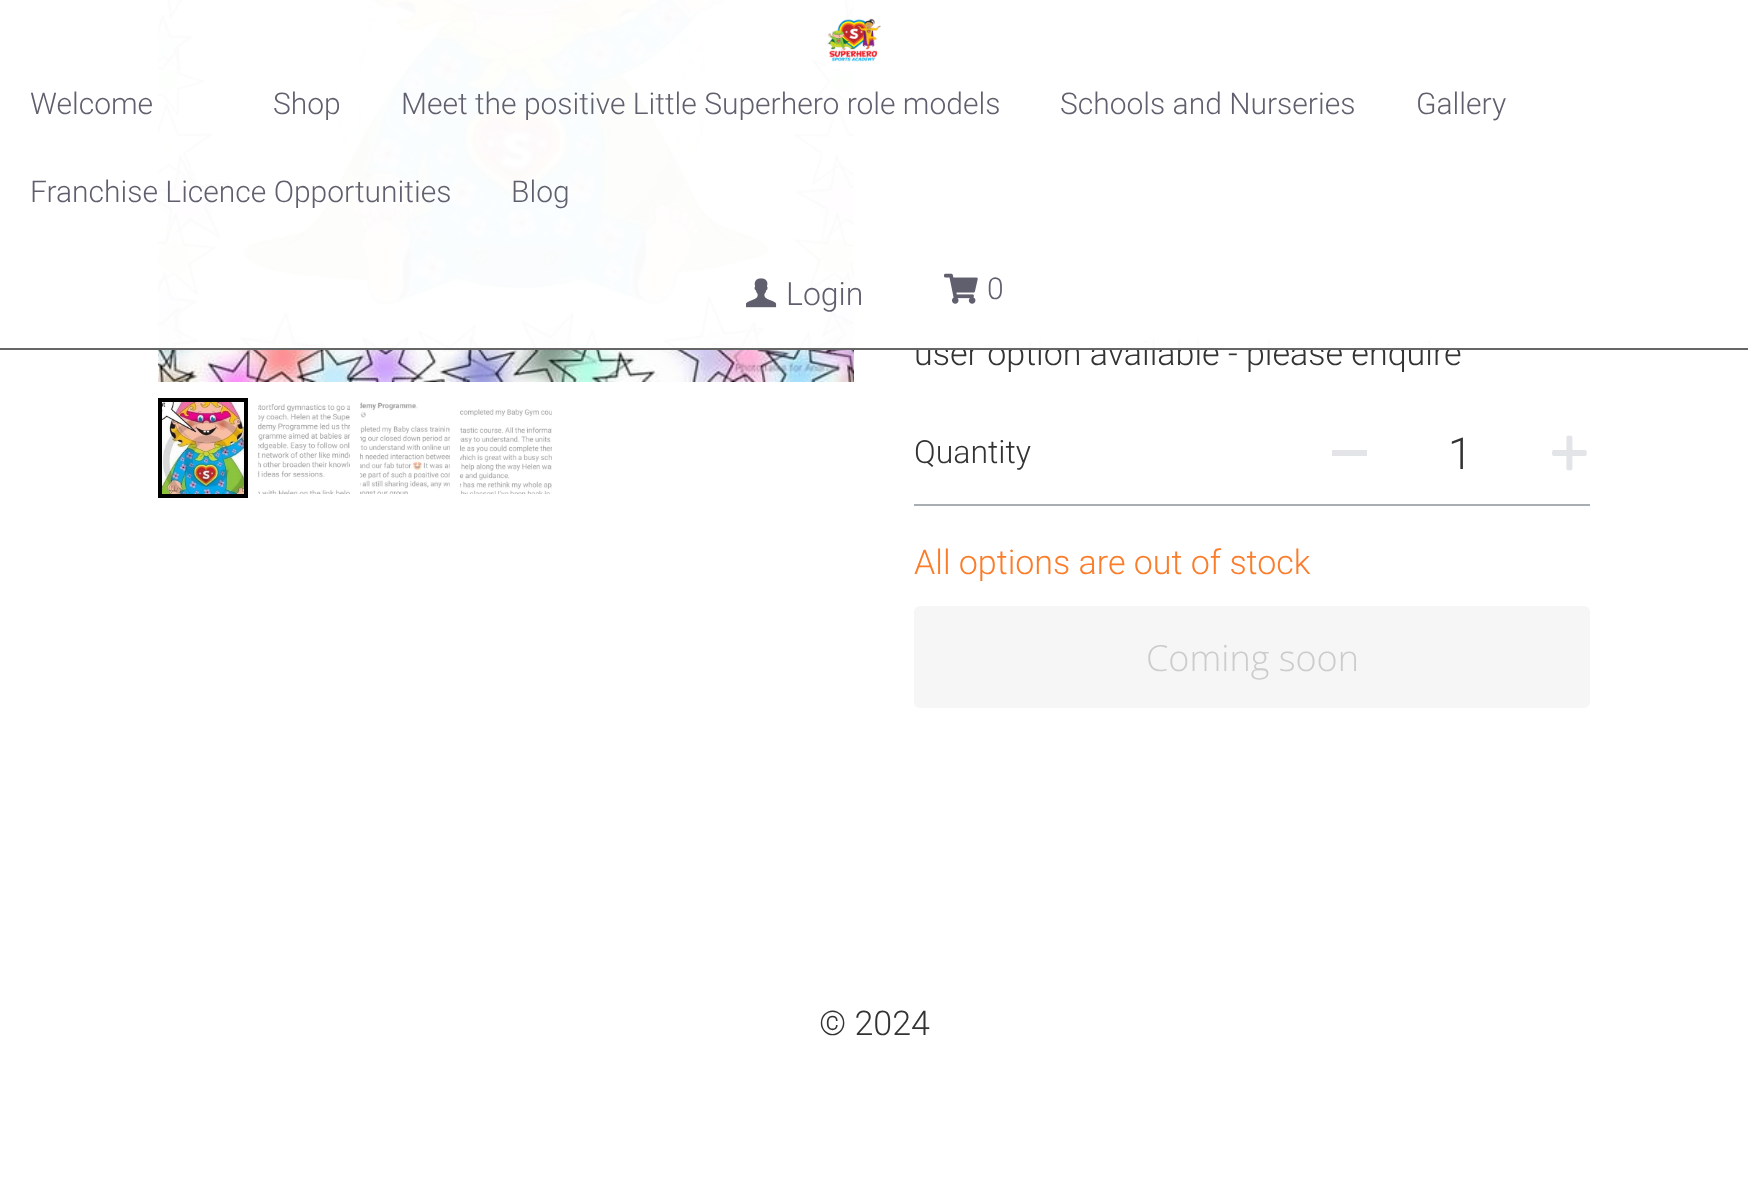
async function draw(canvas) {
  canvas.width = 1748
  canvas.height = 1188
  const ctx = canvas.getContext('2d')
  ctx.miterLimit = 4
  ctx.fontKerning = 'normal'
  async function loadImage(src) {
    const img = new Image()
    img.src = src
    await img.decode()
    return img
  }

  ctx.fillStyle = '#fff'
  ctx.fillRect(0, 0, 1748, 1188)
  ctx.drawImage(await loadImage('image3.png'), 158, 0, 696, 382)
  ctx.font = '300 34px Roboto'
  ctx.fillStyle = '#333'
  ctx.fillText('user option available - please enquire', 914, 365)
  ctx.fillStyle = '#fffffffa'
  ctx.fillRect(158, 0, 1300, 348)
  ctx.fillStyle = '#666'
  ctx.fillRect(0, 348, 1748, 2)
  ctx.drawImage(await loadImage('image0.png'), 826, 17, 55, 52)
  ctx.font = '300 30px Roboto'
  ctx.fillStyle = '#605f6d'
  ctx.fillText('Welcome', 30, 114)
  ctx.fillText('Shop', 273, 114)
  ctx.fillText('Meet the positive Little Superhero role models', 401, 114)
  ctx.fillText('Schools and Nurseries', 1060, 114)
  ctx.fillText('Gallery', 1416, 114)
  ctx.fillText('Franchise Licence Opportunities', 30, 202)
  ctx.fillText('Blog', 511, 202)
  ctx.drawImage(await loadImage('image1.png'), 746, 278, 31, 30)
  ctx.font = '300 32px Roboto'
  ctx.fillText('Login', 786, 305)
  ctx.drawImage(await loadImage('image2.png'), 944, 273, 34, 31)
  ctx.font = '300 30px Roboto'
  ctx.fillText('0', 987, 299)
  ctx.strokeStyle = '#000'
  ctx.lineWidth = 4
  ctx.strokeRect(160, 400, 86, 96)
  ctx.drawImage(await loadImage('image4.png'), 162, 402, 82, 92)
  ctx.drawImage(await loadImage('image5.png'), 258, 404, 92, 90)
  ctx.drawImage(await loadImage('image6.png'), 360, 402, 90, 92)
  ctx.drawImage(await loadImage('image7.png'), 460, 409, 92, 85)
  ctx.fillStyle = '#a9aeb2'
  ctx.fillRect(914, 504, 676, 2)
  ctx.font = '300 32px Roboto'
  ctx.fillStyle = '#333'
  ctx.fillText('Quantity', 914, 463)
  ctx.fillStyle = '#e2e4e7'
  ctx.fillRect(1332, 450, 35, 6)
  ctx.font = '300 44px Roboto'
  ctx.fillStyle = '#333'
  ctx.fillText('1', 1448, 469)
  ctx.drawImage(await loadImage('image8.png'), 1552, 435, 35, 36)
  ctx.font = '300 34px Roboto'
  ctx.fillStyle = '#fb7d2b'
  ctx.fillText('All options are out of stock', 914, 574)
  ctx.fillStyle = '#f6f6f6'
  ctx.beginPath()
  ctx.roundRect(914, 606, 676, 102, 6)
  ctx.fill()
  ctx.font = '300 36px Open Sans'
  ctx.fillStyle = '#ccc'
  ctx.fillText('Coming soon', 1146, 671)
  ctx.font = '300 34px Roboto'
  ctx.fillStyle = '#333'
  ctx.fillText('© 2024', 819, 1035)
}

draw(document.querySelector('canvas'))
